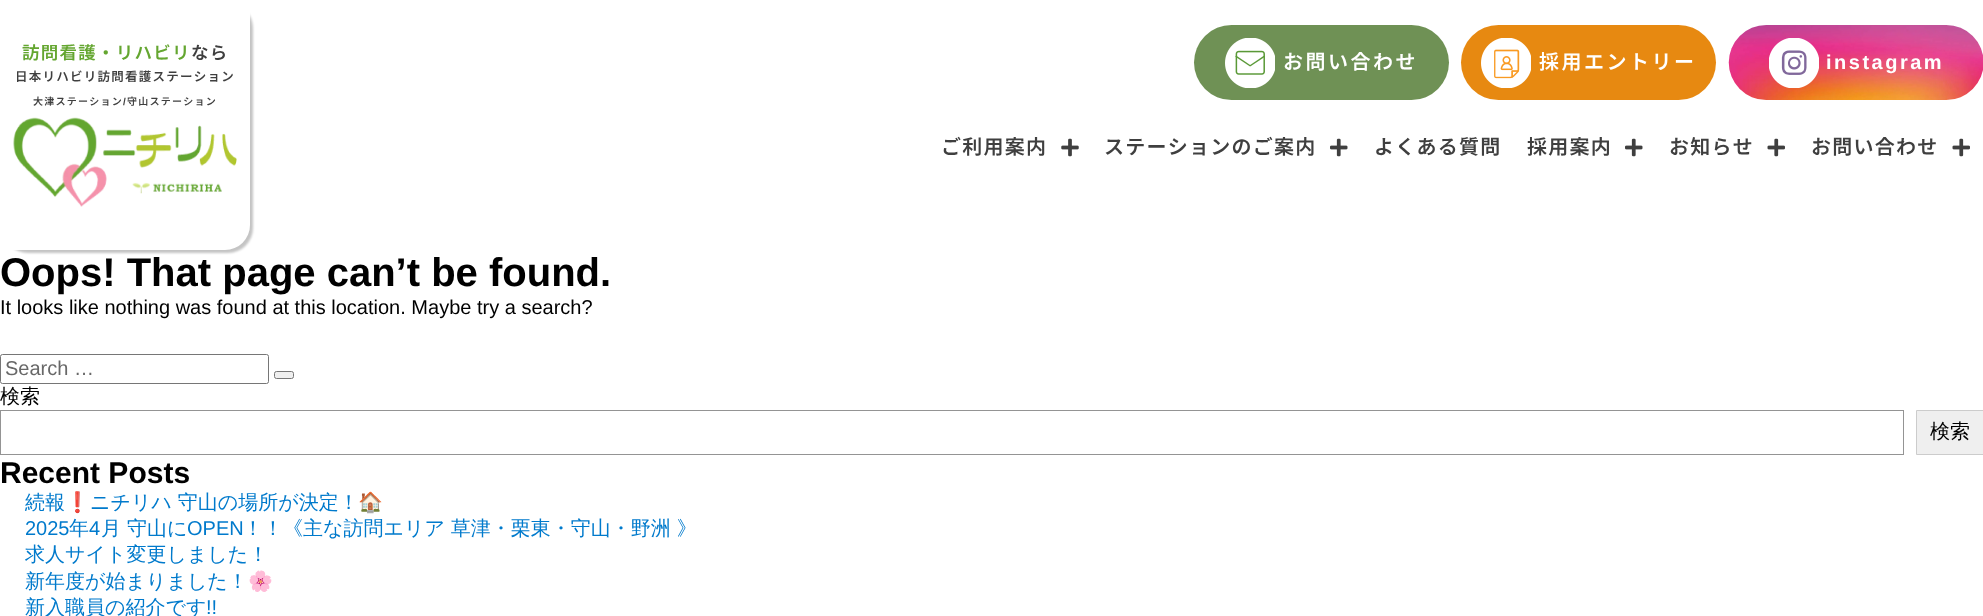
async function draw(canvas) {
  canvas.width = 1983
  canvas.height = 616
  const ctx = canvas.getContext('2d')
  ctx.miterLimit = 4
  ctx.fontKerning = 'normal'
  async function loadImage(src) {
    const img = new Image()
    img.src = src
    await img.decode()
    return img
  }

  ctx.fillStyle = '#fff'
  ctx.fillRect(0, 0, 1983, 616)
  ctx.fillStyle = '#0000003b'
  ctx.filter = 'blur(1px)'
  ctx.beginPath()
  ctx.roundRect(3, 3, 250, 250, 25)
  ctx.fill()
  ctx.filter = 'none'
  ctx.fillStyle = '#fff'
  ctx.beginPath()
  ctx.roundRect(0, 0, 250, 250, [0, 0, 25, 0])
  ctx.fill()
  ctx.letterSpacing = '1.25px'
  ctx.font = '600 17.5px Noto Sans KR'
  ctx.fillStyle = '#64a630'
  ctx.fillText('訪問看護・リハビリ', 22, 59)
  ctx.font = '600 17.5px Noto Sans JP'
  ctx.fillStyle = '#3f3f3f'
  ctx.fillText('なら', 191, 59)
  ctx.font = '600 12.5px Noto Sans JP'
  ctx.fillText('日本リハビリ訪問看護ステーション', 15, 81)
  ctx.font = '600 10px Noto Sans JP'
  ctx.fillText('大津ステーション', 33, 105)
  ctx.font = 'bold 10px Liberation Sans'
  ctx.fillText('/', 123, 105)
  ctx.font = '600 10px Noto Sans JP'
  ctx.fillText('守山ステーション', 127, 105)
  ctx.drawImage(await loadImage('image0.png'), 13, 117, 224, 90)
  ctx.fillStyle = '#6f9155'
  ctx.beginPath()
  ctx.roundRect(1194, 25, 255, 75, 37.5)
  ctx.fill()
  ctx.drawImage(await loadImage('image1.png'), 1225, 38, 50, 50)
  ctx.letterSpacing = '2.5px'
  ctx.font = '600 20px Noto Sans JP'
  ctx.fillStyle = '#fff'
  ctx.fillText('お問い合わせ', 1283, 69)
  ctx.fillStyle = '#e78911'
  ctx.beginPath()
  ctx.roundRect(1461, 25, 255, 75, 37.5)
  ctx.fill()
  ctx.drawImage(await loadImage('image2.png'), 1481, 38, 50, 50)
  ctx.fillStyle = '#fff'
  ctx.fillText('採用エントリー', 1539, 69)
  ctx.drawImage(await loadImage('image3.png'), 1728, 25, 255, 75)
  ctx.drawImage(await loadImage('image4.png'), 1769, 38, 50, 50)
  ctx.font = 'bold 20px Liberation Sans'
  ctx.fillText('instagram', 1826, 69)
  ctx.letterSpacing = '1.25px'
  ctx.font = '600 20px Noto Sans JP'
  ctx.fillStyle = '#3f3f3f'
  ctx.fillText('ご利用案内', 941, 154)
  ctx.drawImage(await loadImage('image5.png'), 1061, 138, 18, 19)
  ctx.fillText('ステーションのご案内', 1104, 154)
  ctx.drawImage(await loadImage('image6.png'), 1330, 138, 18, 19)
  ctx.fillText('よくある質問', 1374, 154)
  ctx.fillText('採用案内', 1527, 154)
  ctx.drawImage(await loadImage('image6.png'), 1625, 138, 18, 19)
  ctx.fillText('お知らせ', 1669, 154)
  ctx.drawImage(await loadImage('image7.png'), 1767, 138, 18, 19)
  ctx.fillText('お問い合わせ', 1811, 154)
  ctx.drawImage(await loadImage('image7.png'), 1952, 138, 18, 19)
  ctx.letterSpacing = '0px'
  ctx.font = 'bold 40px Liberation Sans'
  ctx.fillStyle = '#000'
  ctx.fillText('Oops! That page can’t be found.', 0, 286)
  ctx.font = '20px Liberation Sans'
  ctx.fillText('It looks like nothing was found at this location. Maybe try a search?', 0, 314)
  ctx.beginPath()
  ctx.roundRect(0.5, 354.5, 268, 29, 2)
  ctx.strokeStyle = '#767676'
  ctx.stroke()
  ctx.fillStyle = '#686868'
  ctx.fillText('Search …', 5, 375)
  ctx.fillStyle = '#efefef'
  ctx.beginPath()
  ctx.roundRect(274.5, 371.5, 19, 7, 2)
  ctx.fill()
  ctx.stroke()
  ctx.font = '500 20px WenQuanYi Zen Hei'
  ctx.fillStyle = '#000'
  ctx.fillText('検索', 0, 403)
  ctx.strokeStyle = '#949494'
  ctx.strokeRect(0.5, 410.5, 1903, 44)
  ctx.fillStyle = '#efefef'
  ctx.beginPath()
  ctx.rect(1916.5, 410.5, 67, 44)
  ctx.fill()
  ctx.strokeStyle = '#ccc'
  ctx.stroke()
  ctx.fillStyle = '#000'
  ctx.fillText('検索', 1930, 438)
  ctx.font = 'bold 30px Liberation Sans'
  ctx.fillText('Recent Posts', 0, 483)
  ctx.font = '500 20px WenQuanYi Zen Hei'
  ctx.fillStyle = '#007acc'
  ctx.fillText('続報', 25, 509)
  ctx.font = '20px Noto Color Emoji'
  ctx.fillText('❗️', 65, 509)
  ctx.font = '500 20px WenQuanYi Zen Hei'
  ctx.fillText('ニチリハ 守山の場所が決定！', 90, 509)
  ctx.font = '20px Noto Color Emoji'
  ctx.fillText('🏠', 358, 509)
  ctx.font = '20px Liberation Sans'
  ctx.fillText('2025', 25, 535)
  ctx.font = '500 20px WenQuanYi Zen Hei'
  ctx.fillText('年', 69, 535)
  ctx.font = '20px Liberation Sans'
  ctx.fillText('4', 89, 535)
  ctx.font = '500 20px WenQuanYi Zen Hei'
  ctx.fillText('月 守山に', 101, 535)
  ctx.font = '20px Liberation Sans'
  ctx.fillText('OPEN', 187, 535)
  ctx.font = '500 20px WenQuanYi Zen Hei'
  ctx.fillText('！！《主な訪問エリア 草津・栗東・守山・野洲 》', 243, 535)
  ctx.fillText('求人サイト変更しました！', 25, 561)
  ctx.fillText('新年度が始まりました！', 25, 588)
  ctx.font = '20px Noto Color Emoji'
  ctx.fillText('🌸', 248, 588)
  ctx.font = '500 20px WenQuanYi Zen Hei'
  ctx.fillText('新入職員の紹介です', 25, 614)
  ctx.font = '20px Liberation Sans'
  ctx.fillText('!!', 206, 614)
}

draw(document.querySelector('canvas'))
